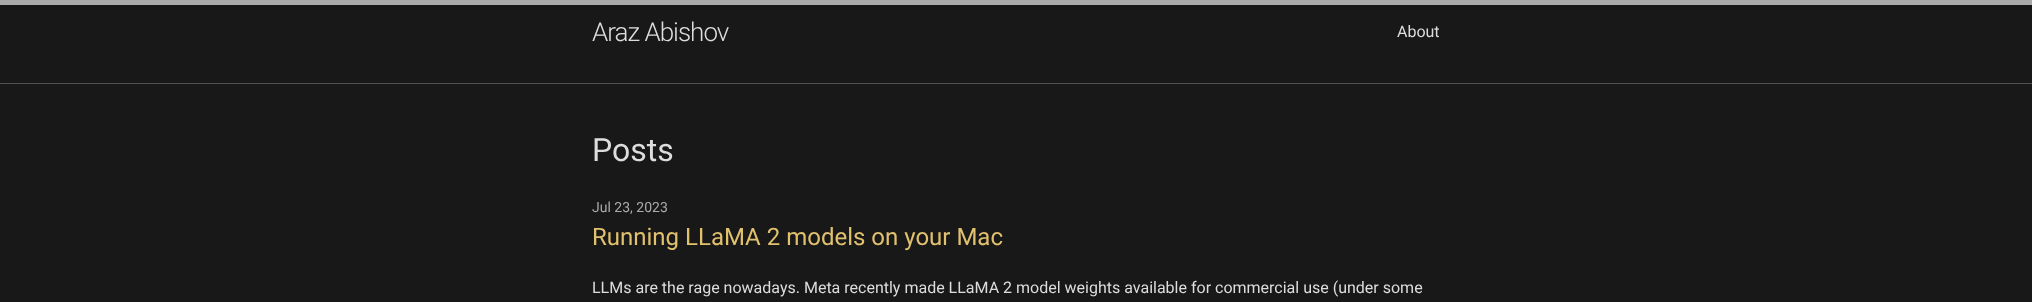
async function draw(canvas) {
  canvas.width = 2032
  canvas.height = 302
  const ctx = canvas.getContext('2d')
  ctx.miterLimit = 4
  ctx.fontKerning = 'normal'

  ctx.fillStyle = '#181818'
  ctx.fillRect(0, 0, 2032, 302)
  ctx.fillStyle = '#aaa'
  ctx.fillRect(0, 0, 2032, 5)
  ctx.fillStyle = '#515151'
  ctx.fillRect(0, 83, 2032, 1)
  ctx.letterSpacing = '-1px'
  ctx.font = '300 26px Roboto'
  ctx.fillStyle = '#ddd'
  ctx.fillText('Araz Abishov', 592, 41)
  ctx.letterSpacing = '0px'
  ctx.font = '16px Roboto'
  ctx.fillText('About', 1397, 37)
  ctx.font = '32px Roboto'
  ctx.fillText('Posts', 592, 161)
  ctx.font = '14px Roboto'
  ctx.fillStyle = '#aaa'
  ctx.fillText('Jul 23, 2023', 592, 212)
  ctx.font = '24px Roboto'
  ctx.fillStyle = '#e1c16e'
  ctx.fillText('Running LLaMA 2 models on your Mac', 592, 245)
  ctx.font = '16px Roboto'
  ctx.fillStyle = '#ddd'
  ctx.fillText('LLMs are the rage nowadays. Meta recently made LLaMA 2 model weights available for commercial use (under some', 592, 293)
}

draw(document.querySelector('canvas'))
